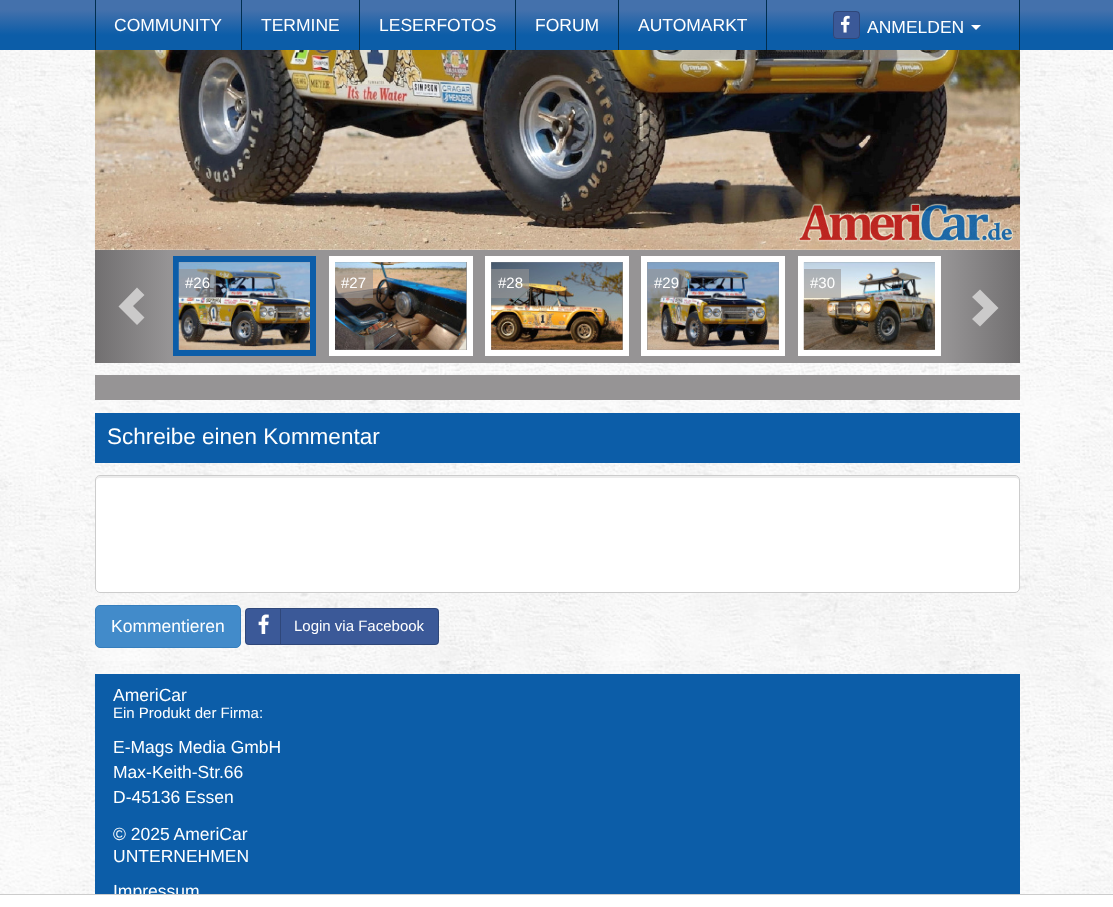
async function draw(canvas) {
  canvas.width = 1113
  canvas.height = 907
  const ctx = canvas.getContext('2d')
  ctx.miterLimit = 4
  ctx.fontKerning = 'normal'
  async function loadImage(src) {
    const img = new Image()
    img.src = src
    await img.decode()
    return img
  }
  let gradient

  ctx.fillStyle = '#fff'
  ctx.fillRect(0, 0, 1113, 907)
  ctx.drawImage(await loadImage('image0.png'), 0, 50, 1113, 844)
  gradient = ctx.createLinearGradient(557, 0, 557, 50)
  gradient.addColorStop(0.2, '#4471ac')
  gradient.addColorStop(0.7, '#0c5da8')
  ctx.fillStyle = gradient
  ctx.fillRect(0, 0, 1113, 50)
  ctx.fillStyle = '#012e4f'
  ctx.fillRect(766, 0, 1, 50)
  ctx.fillRect(95, 0, 1, 50)
  ctx.font = '17.5px Liberation Sans'
  ctx.fillStyle = '#fff'
  ctx.fillText('COMMUNITY', 114, 31)
  ctx.fillStyle = '#012e4f'
  ctx.fillRect(241, 0, 1, 50)
  ctx.fillStyle = '#fff'
  ctx.fillText('TERMINE', 261, 31)
  ctx.fillStyle = '#012e4f'
  ctx.fillRect(359, 0, 1, 50)
  ctx.fillStyle = '#fff'
  ctx.fillText('LESERFOTOS', 379, 31)
  ctx.fillStyle = '#012e4f'
  ctx.fillRect(515, 0, 1, 50)
  ctx.fillStyle = '#fff'
  ctx.fillText('FORUM', 535, 31)
  ctx.fillStyle = '#012e4f'
  ctx.fillRect(618, 0, 1, 50)
  ctx.fillStyle = '#fff'
  ctx.fillText('AUTOMARKT', 638, 31)
  ctx.fillStyle = '#012e4f'
  ctx.fillRect(1019, 0, 1, 50)
  ctx.fillStyle = '#3b5998'
  ctx.beginPath()
  ctx.roundRect(833, 11, 27, 28, 4)
  ctx.fill()
  ctx.beginPath()
  ctx.roundRect(833.5, 11.5, 26, 27, 3.5)
  ctx.strokeStyle = '#00000033'
  ctx.stroke()
  ctx.drawImage(await loadImage('image1.png'), 840, 15, 10, 18)
  ctx.fillStyle = '#fff'
  ctx.fillText('ANMELDEN', 867, 33)
  ctx.beginPath()
  ctx.moveTo(971, 25)
  ctx.lineTo(981, 25)
  ctx.lineTo(976, 30)
  ctx.closePath()
  ctx.fill()
  ctx.drawImage(await loadImage('image2.png'), 95, 50, 925, 200)
  ctx.fillStyle = '#969495'
  ctx.fillRect(169, 250, 776, 113)
  gradient = ctx.createLinearGradient(95, 306, 169, 306)
  gradient.addColorStop(0, '#716f70')
  gradient.addColorStop(1, '#969495')
  ctx.fillStyle = gradient
  ctx.fillRect(95, 250, 74, 113)
  ctx.fillStyle = '#cbcaca'
  ctx.beginPath()
  ctx.moveTo(118.5, 306.5)
  ctx.lineTo(137, 325)
  ctx.lineTo(144.5, 317.5)
  ctx.lineTo(133, 306)
  ctx.lineTo(144.5, 295)
  ctx.lineTo(137, 287.5)
  ctx.closePath()
  ctx.fill()
  ctx.strokeStyle = '#0c5da8'
  ctx.lineWidth = 6
  ctx.strokeRect(176, 259, 137, 94)
  ctx.drawImage(await loadImage('image3.png'), 178, 262, 132, 88)
  ctx.fillStyle = '#96949599'
  ctx.fillRect(179, 269, 37, 29)
  ctx.font = '15px Liberation Sans'
  ctx.fillStyle = '#fff'
  ctx.fillText('#26', 185, 288)
  ctx.strokeStyle = '#fff'
  ctx.strokeRect(332, 259, 138, 94)
  ctx.drawImage(await loadImage('image4.png'), 335, 262, 132, 88)
  ctx.fillStyle = '#96949599'
  ctx.fillRect(335, 269, 38, 29)
  ctx.fillStyle = '#fff'
  ctx.fillText('#27', 341, 288)
  ctx.strokeRect(488, 259, 138, 94)
  ctx.drawImage(await loadImage('image5.png'), 491, 262, 132, 88)
  ctx.fillStyle = '#96949599'
  ctx.fillRect(491, 269, 38, 29)
  ctx.fillStyle = '#fff'
  ctx.fillText('#28', 498, 288)
  ctx.strokeRect(644, 259, 138, 94)
  ctx.drawImage(await loadImage('image6.png'), 647, 262, 132, 88)
  ctx.fillStyle = '#96949599'
  ctx.fillRect(648, 269, 37, 29)
  ctx.fillStyle = '#fff'
  ctx.fillText('#29', 654, 288)
  ctx.strokeRect(801, 259, 137, 94)
  ctx.drawImage(await loadImage('image7.png'), 803, 262, 132, 88)
  ctx.fillStyle = '#96949599'
  ctx.fillRect(804, 269, 37, 29)
  ctx.fillStyle = '#fff'
  ctx.fillText('#30', 810, 288)
  gradient = ctx.createLinearGradient(945, 306, 1020, 306)
  gradient.addColorStop(0, '#969495')
  gradient.addColorStop(1, '#716f70')
  ctx.fillStyle = gradient
  ctx.fillRect(945, 250, 75, 113)
  ctx.fillStyle = '#cbcaca'
  ctx.beginPath()
  ctx.moveTo(972, 319)
  ctx.lineTo(983.5, 308)
  ctx.lineTo(972, 297)
  ctx.lineTo(980, 289.5)
  ctx.lineTo(998.5, 308)
  ctx.lineTo(980, 326.5)
  ctx.closePath()
  ctx.fill()
  ctx.fillStyle = '#969495'
  ctx.fillRect(95, 375, 925, 25)
  ctx.fillStyle = '#0c5da8'
  ctx.fillRect(95, 413, 925, 50)
  ctx.font = '22.5px Liberation Sans'
  ctx.fillStyle = '#fff'
  ctx.fillText('Schreibe einen Kommentar', 107, 444)
  ctx.beginPath()
  ctx.roundRect(95, 475, 925, 118, 5)
  ctx.fill()
  ctx.fillStyle = '#ececec'
  ctx.beginPath()
  ctx.moveTo(100, 478)
  ctx.lineTo(1015, 478)
  ctx.bezierCurveTo(1017, 478, 1019, 479, 1019, 481)
  ctx.bezierCurveTo(1019, 478, 1018, 476, 1015, 476)
  ctx.lineTo(100, 476)
  ctx.bezierCurveTo(97, 476, 96, 478, 96, 481)
  ctx.bezierCurveTo(96, 479, 98, 478, 100, 478)
  ctx.closePath()
  ctx.fill()
  ctx.beginPath()
  ctx.roundRect(95.5, 475.5, 924, 117, 4.5)
  ctx.strokeStyle = '#ccc'
  ctx.lineWidth = 1
  ctx.stroke()
  ctx.fillStyle = '#428bca'
  ctx.beginPath()
  ctx.roundRect(95.5, 605.5, 145, 42, 4.5)
  ctx.fill()
  ctx.strokeStyle = '#357ebd'
  ctx.stroke()
  ctx.font = '17.5px Liberation Sans'
  ctx.fillStyle = '#fff'
  ctx.fillText('Kommentieren', 111, 632)
  ctx.fillStyle = '#3b5998'
  ctx.beginPath()
  ctx.roundRect(245, 608, 194, 37, 4)
  ctx.fill()
  ctx.beginPath()
  ctx.roundRect(245.5, 608.5, 193, 36, 3.5)
  ctx.strokeStyle = '#00000033'
  ctx.stroke()
  ctx.fillStyle = '#2f477a'
  ctx.fillRect(280, 609, 1, 35)
  ctx.drawImage(await loadImage('image8.png'), 258, 614, 11, 20)
  ctx.font = '15px Liberation Sans'
  ctx.fillStyle = '#fff'
  ctx.fillText('Login via Facebook', 294, 631)
  ctx.fillStyle = '#0c5da8'
  ctx.fillRect(95, 674, 925, 220)
  ctx.font = '17.5px Liberation Sans'
  ctx.fillStyle = '#fff'
  ctx.fillText('AmeriCar', 113, 701)
  ctx.font = '15px Liberation Sans'
  ctx.fillText('Ein Produkt der Firma:', 113, 718)
  ctx.font = '17.5px Liberation Sans'
  ctx.fillText('E-Mags Media GmbH', 113, 753)
  ctx.fillText('Max-Keith-Str.66', 113, 778)
  ctx.fillText('D-45136 Essen', 113, 803)
  ctx.fillText('© 2025 AmeriCar', 113, 840)
  ctx.fillText('UNTERNEHMEN', 113, 862)
  ctx.fillText('Impressum', 113, 897)
  ctx.fillStyle = '#ccc'
  ctx.fillRect(0, 894, 1113, 1)
}

draw(document.querySelector('canvas'))
